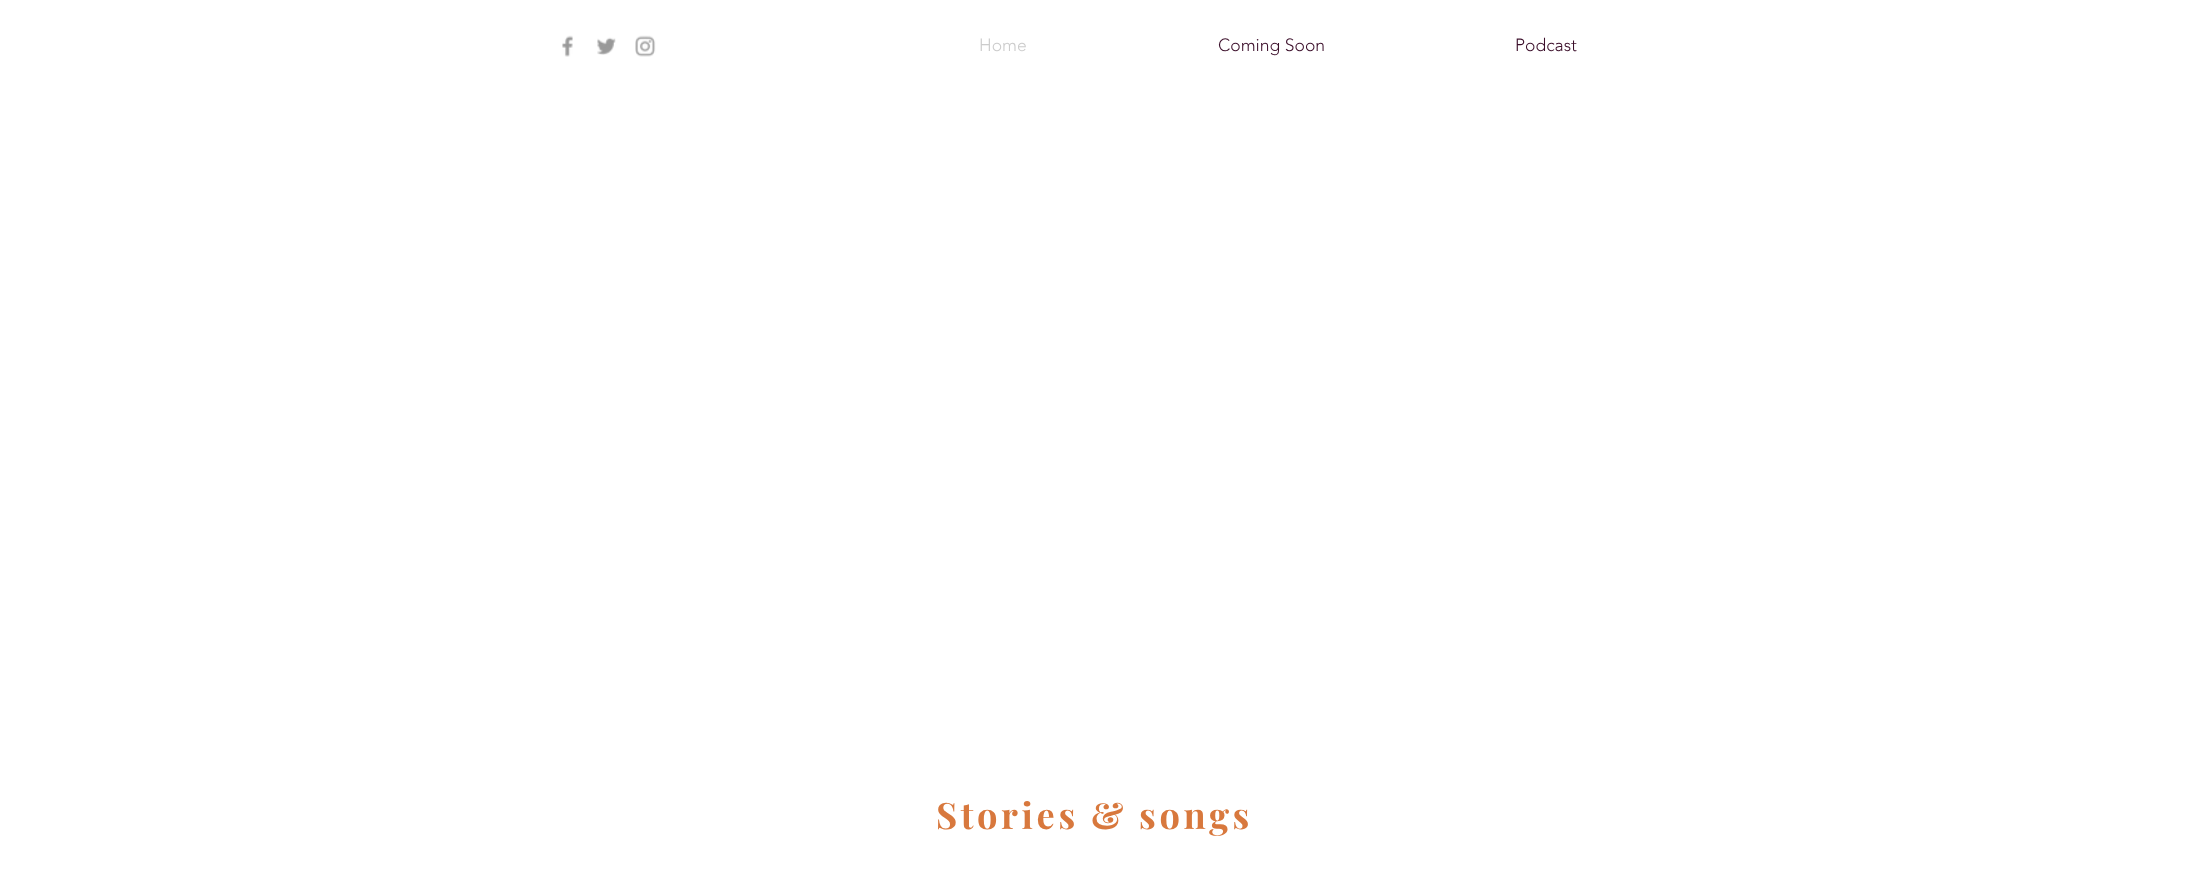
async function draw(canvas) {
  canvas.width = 2202
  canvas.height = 869
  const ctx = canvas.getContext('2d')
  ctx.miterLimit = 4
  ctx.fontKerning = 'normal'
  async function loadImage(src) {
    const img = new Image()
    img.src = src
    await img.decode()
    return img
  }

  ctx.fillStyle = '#fff'
  ctx.fillRect(0, 0, 2202, 869)
  ctx.drawImage(await loadImage('image0.png'), 562, 35, 11, 22)
  ctx.drawImage(await loadImage('image1.png'), 597, 37, 19, 18)
  ctx.drawImage(await loadImage('image2.png'), 635, 35, 21, 22)
  ctx.font = '300 17.5px "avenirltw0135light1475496"'
  ctx.fillStyle = '#ccc'
  ctx.fillText('Home', 979, 51)
  ctx.fillStyle = '#3b0e2a'
  ctx.fillText('Coming Soon', 1218, 51)
  ctx.fillText('Podcast', 1515, 51)
  ctx.letterSpacing = '3.6px'
  ctx.font = 'bold 36.25px Playfair Display'
  ctx.fillStyle = '#d8783d'
  ctx.fillText('Stories & songs', 936, 829)
}

draw(document.querySelector('canvas'))
